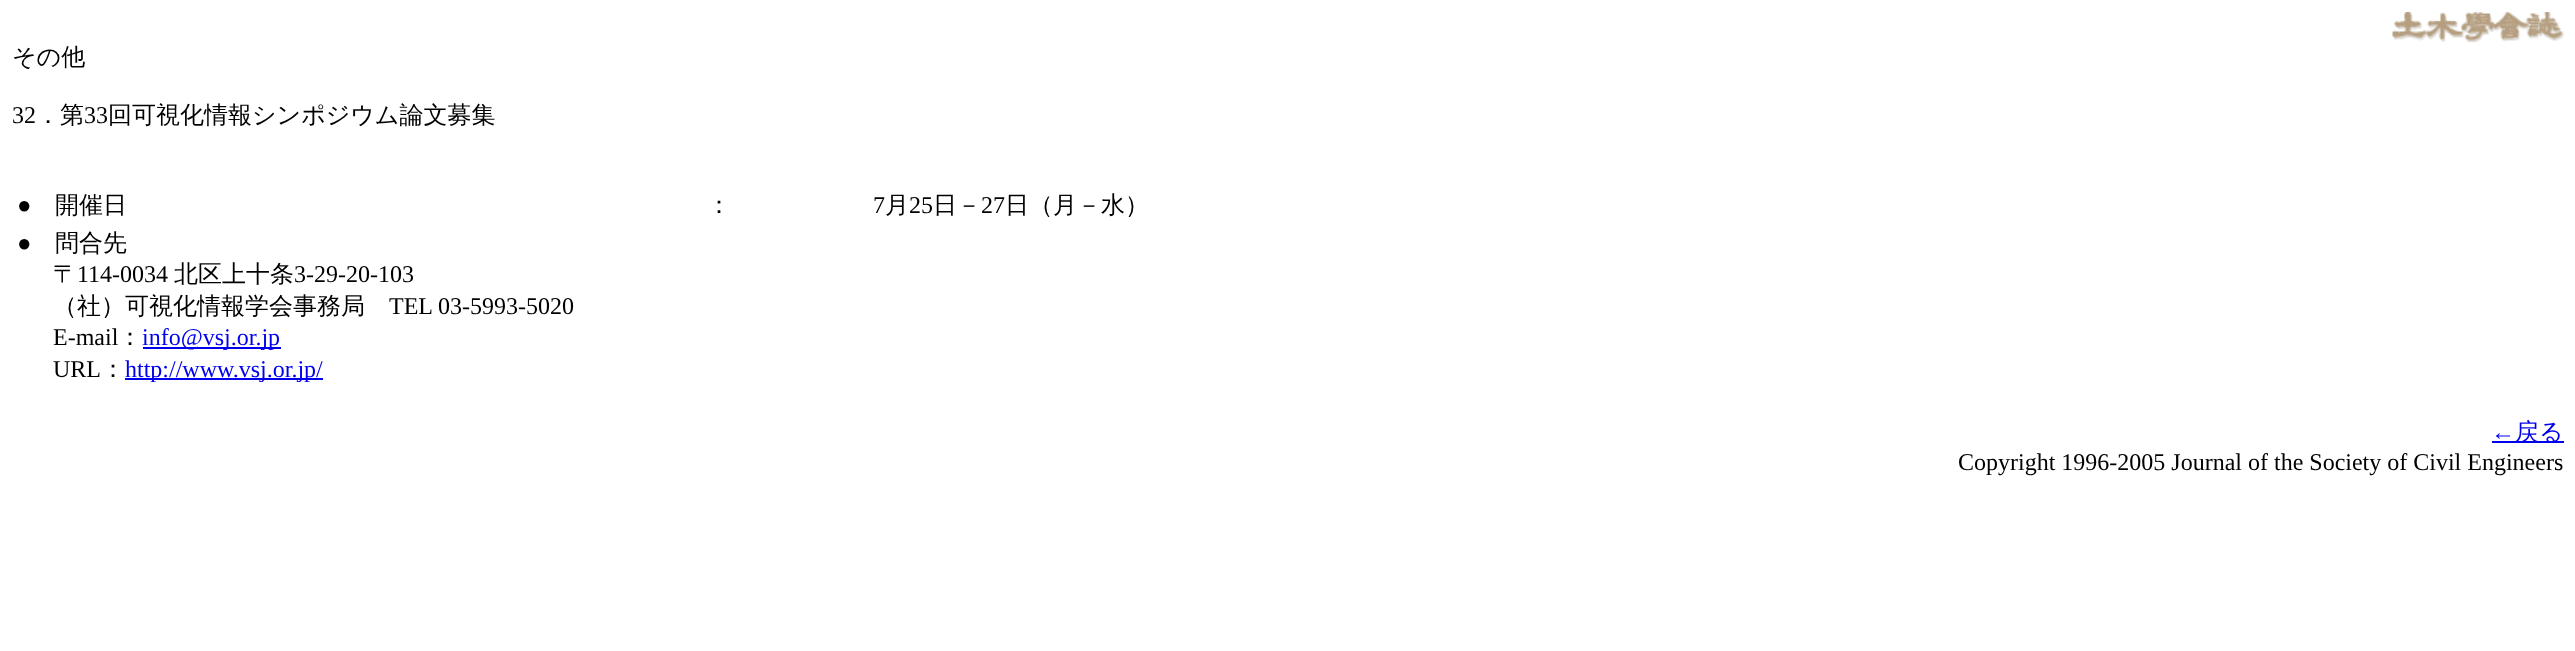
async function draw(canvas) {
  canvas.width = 2575
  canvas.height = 651
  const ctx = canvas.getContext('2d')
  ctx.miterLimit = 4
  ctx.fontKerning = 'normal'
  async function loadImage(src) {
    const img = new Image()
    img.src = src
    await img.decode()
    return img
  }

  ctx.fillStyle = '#fff'
  ctx.fillRect(0, 0, 2575, 651)
  ctx.drawImage(await loadImage('image0.png'), 2392, 12, 172, 30)
  ctx.font = '500 24px WenQuanYi Zen Hei'
  ctx.fillStyle = '#000'
  ctx.fillText('その他', 12, 65)
  ctx.font = '24px Liberation Serif'
  ctx.fillText('32', 12, 123)
  ctx.font = '500 24px WenQuanYi Zen Hei'
  ctx.fillText('．第', 36, 123)
  ctx.font = '24px Liberation Serif'
  ctx.fillText('33', 84, 123)
  ctx.font = '500 24px WenQuanYi Zen Hei'
  ctx.fillText('回可視化情報シンポジウム論文募集', 108, 123)
  ctx.font = '24px Liberation Serif'
  ctx.fillText('●', 17, 213)
  ctx.font = '500 24px WenQuanYi Zen Hei'
  ctx.fillText('開催日', 55, 213)
  ctx.fillText('：', 707, 213)
  ctx.font = '24px Liberation Serif'
  ctx.fillText('7', 873, 213)
  ctx.font = '500 24px WenQuanYi Zen Hei'
  ctx.fillText('月', 885, 213)
  ctx.font = '24px Liberation Serif'
  ctx.fillText('25', 909, 213)
  ctx.font = '500 24px WenQuanYi Zen Hei'
  ctx.fillText('日－', 933, 213)
  ctx.font = '24px Liberation Serif'
  ctx.fillText('27', 981, 213)
  ctx.font = '500 24px WenQuanYi Zen Hei'
  ctx.fillText('日（月－水）', 1005, 213)
  ctx.font = '24px Liberation Serif'
  ctx.fillText('●', 17, 251)
  ctx.font = '500 24px WenQuanYi Zen Hei'
  ctx.fillText('問合先', 55, 251)
  ctx.fillText('〒', 53, 282)
  ctx.font = '24px Liberation Serif'
  ctx.fillText('114-0034', 77, 282)
  ctx.font = '500 24px WenQuanYi Zen Hei'
  ctx.fillText('北区上十条', 174, 282)
  ctx.font = '24px Liberation Serif'
  ctx.fillText('3-29-20-103', 294, 282)
  ctx.font = '500 24px WenQuanYi Zen Hei'
  ctx.fillText('（社）可視化情報学会事務局', 53, 314)
  ctx.font = '24px Liberation Serif'
  ctx.fillText('TEL 03-5993-5020', 389, 314)
  ctx.fillText('E-mail', 53, 345)
  ctx.font = '500 24px WenQuanYi Zen Hei'
  ctx.fillText('：', 118, 345)
  ctx.fillStyle = '#00e'
  ctx.fillRect(143, 347, 138, 2)
  ctx.font = '24px Liberation Serif'
  ctx.fillText('info@vsj.or.jp', 142, 345)
  ctx.fillStyle = '#000'
  ctx.fillText('URL', 53, 377)
  ctx.font = '500 24px WenQuanYi Zen Hei'
  ctx.fillText('：', 101, 377)
  ctx.fillStyle = '#00e'
  ctx.fillRect(125, 378, 198, 2)
  ctx.font = '24px Liberation Serif'
  ctx.fillText('http://www.vsj.or.jp/', 125, 377)
  ctx.fillText('←', 2491, 440)
  ctx.fillRect(2492, 441, 72, 2)
  ctx.font = '500 24px WenQuanYi Zen Hei'
  ctx.fillText('戻る', 2515, 440)
  ctx.font = '24px Liberation Serif'
  ctx.fillStyle = '#000'
  ctx.fillText('Copyright 1996-2005 Journal of the Society of Civil Engineers', 1958, 470)
}

draw(document.querySelector('canvas'))
